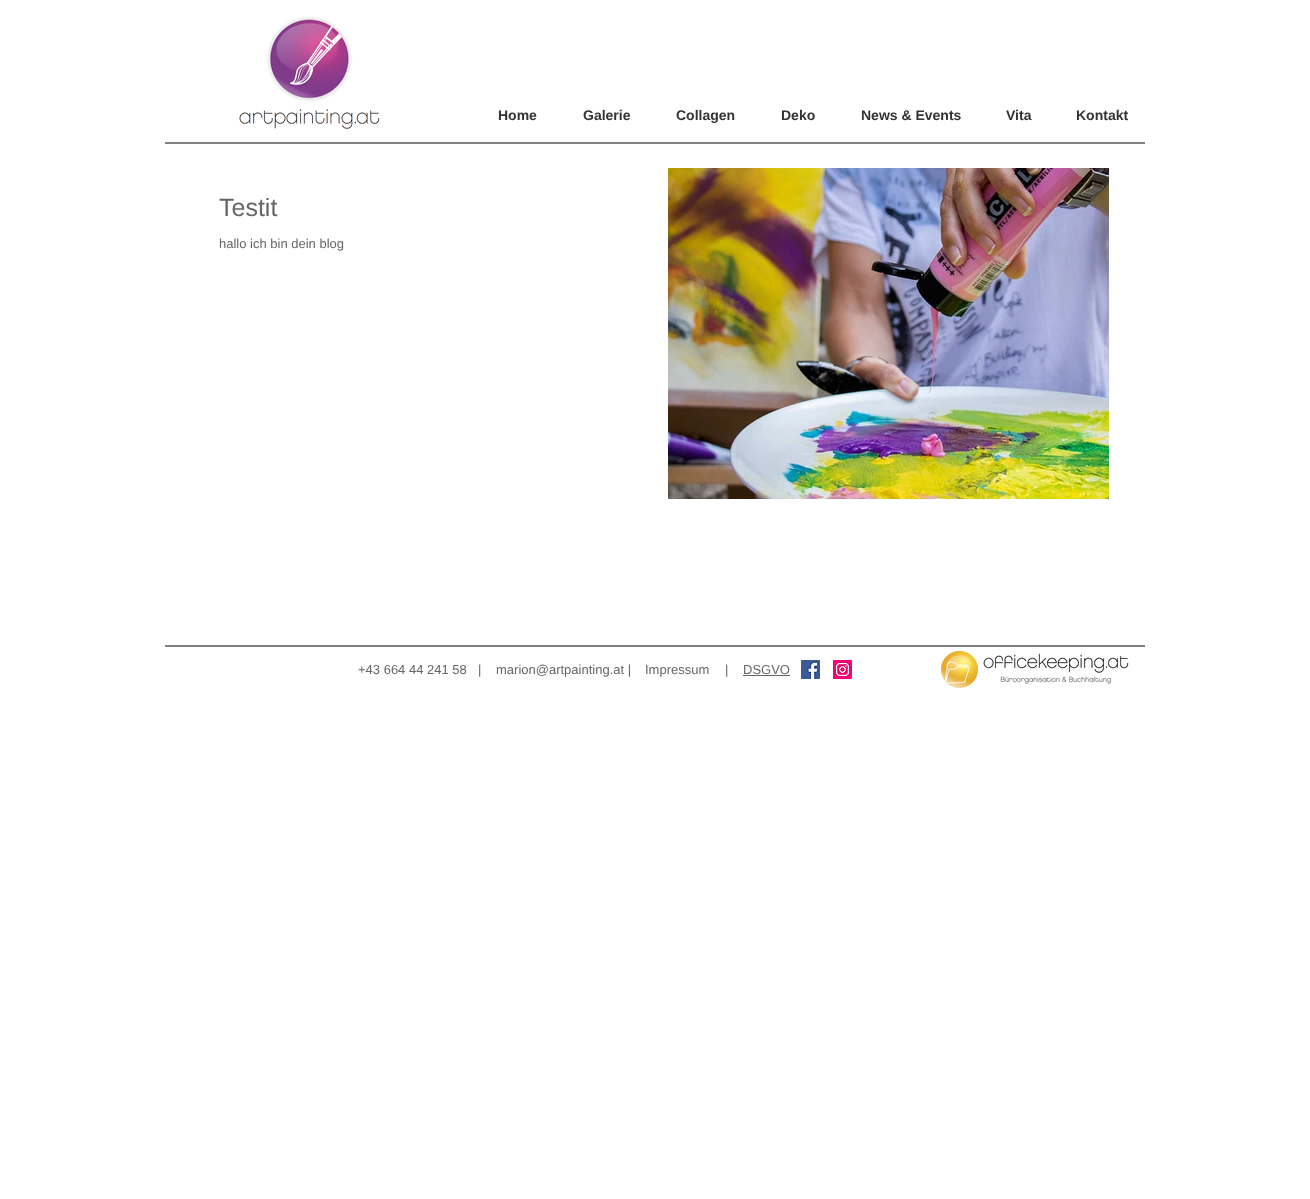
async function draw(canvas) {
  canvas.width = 1310
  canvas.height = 1199
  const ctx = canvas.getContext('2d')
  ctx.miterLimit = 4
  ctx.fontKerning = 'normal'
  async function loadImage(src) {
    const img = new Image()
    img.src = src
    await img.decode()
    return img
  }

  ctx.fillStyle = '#fff'
  ctx.fillRect(0, 0, 1310, 1199)
  ctx.drawImage(await loadImage('image0.png'), 239, 16, 141, 113)
  ctx.font = 'bold 14px Liberation Sans'
  ctx.fillStyle = '#333'
  ctx.fillText('Home', 498, 120)
  ctx.fillText('Galerie', 583, 120)
  ctx.fillText('Collagen', 676, 120)
  ctx.fillText('Deko', 781, 120)
  ctx.fillText('News & Events', 861, 120)
  ctx.fillText('Vita', 1006, 120)
  ctx.fillText('Kontakt', 1076, 120)
  ctx.fillStyle = '#808080'
  ctx.fillRect(165, 142, 980, 2)
  ctx.font = '25px Liberation Sans'
  ctx.fillStyle = '#666'
  ctx.fillText('Testit', 219, 216)
  ctx.font = '13px Liberation Sans'
  ctx.fillText('hallo ich bin dein blog', 219, 248)
  ctx.drawImage(await loadImage('image1.png'), 668, 168, 441, 331)
  ctx.fillStyle = '#808080'
  ctx.fillRect(165, 645, 980, 2)
  ctx.fillStyle = '#666'
  ctx.fillText('+43 664 44 241 58', 358, 674)
  ctx.fillText('|', 478, 674)
  ctx.fillText('marion@artpainting.at |                          |', 496, 674)
  ctx.fillText('DSGVO', 743, 674)
  ctx.fillRect(743, 675, 47, 1)
  ctx.drawImage(await loadImage('image2.png'), 801, 660, 19, 19)
  ctx.drawImage(await loadImage('image3.png'), 833, 660, 19, 19)
  ctx.drawImage(await loadImage('image4.png'), 941, 651, 37, 37)
  ctx.drawImage(await loadImage('image5.png'), 983, 653, 146, 31)
  ctx.fillText('Impressum', 645, 674)
}

draw(document.querySelector('canvas'))
